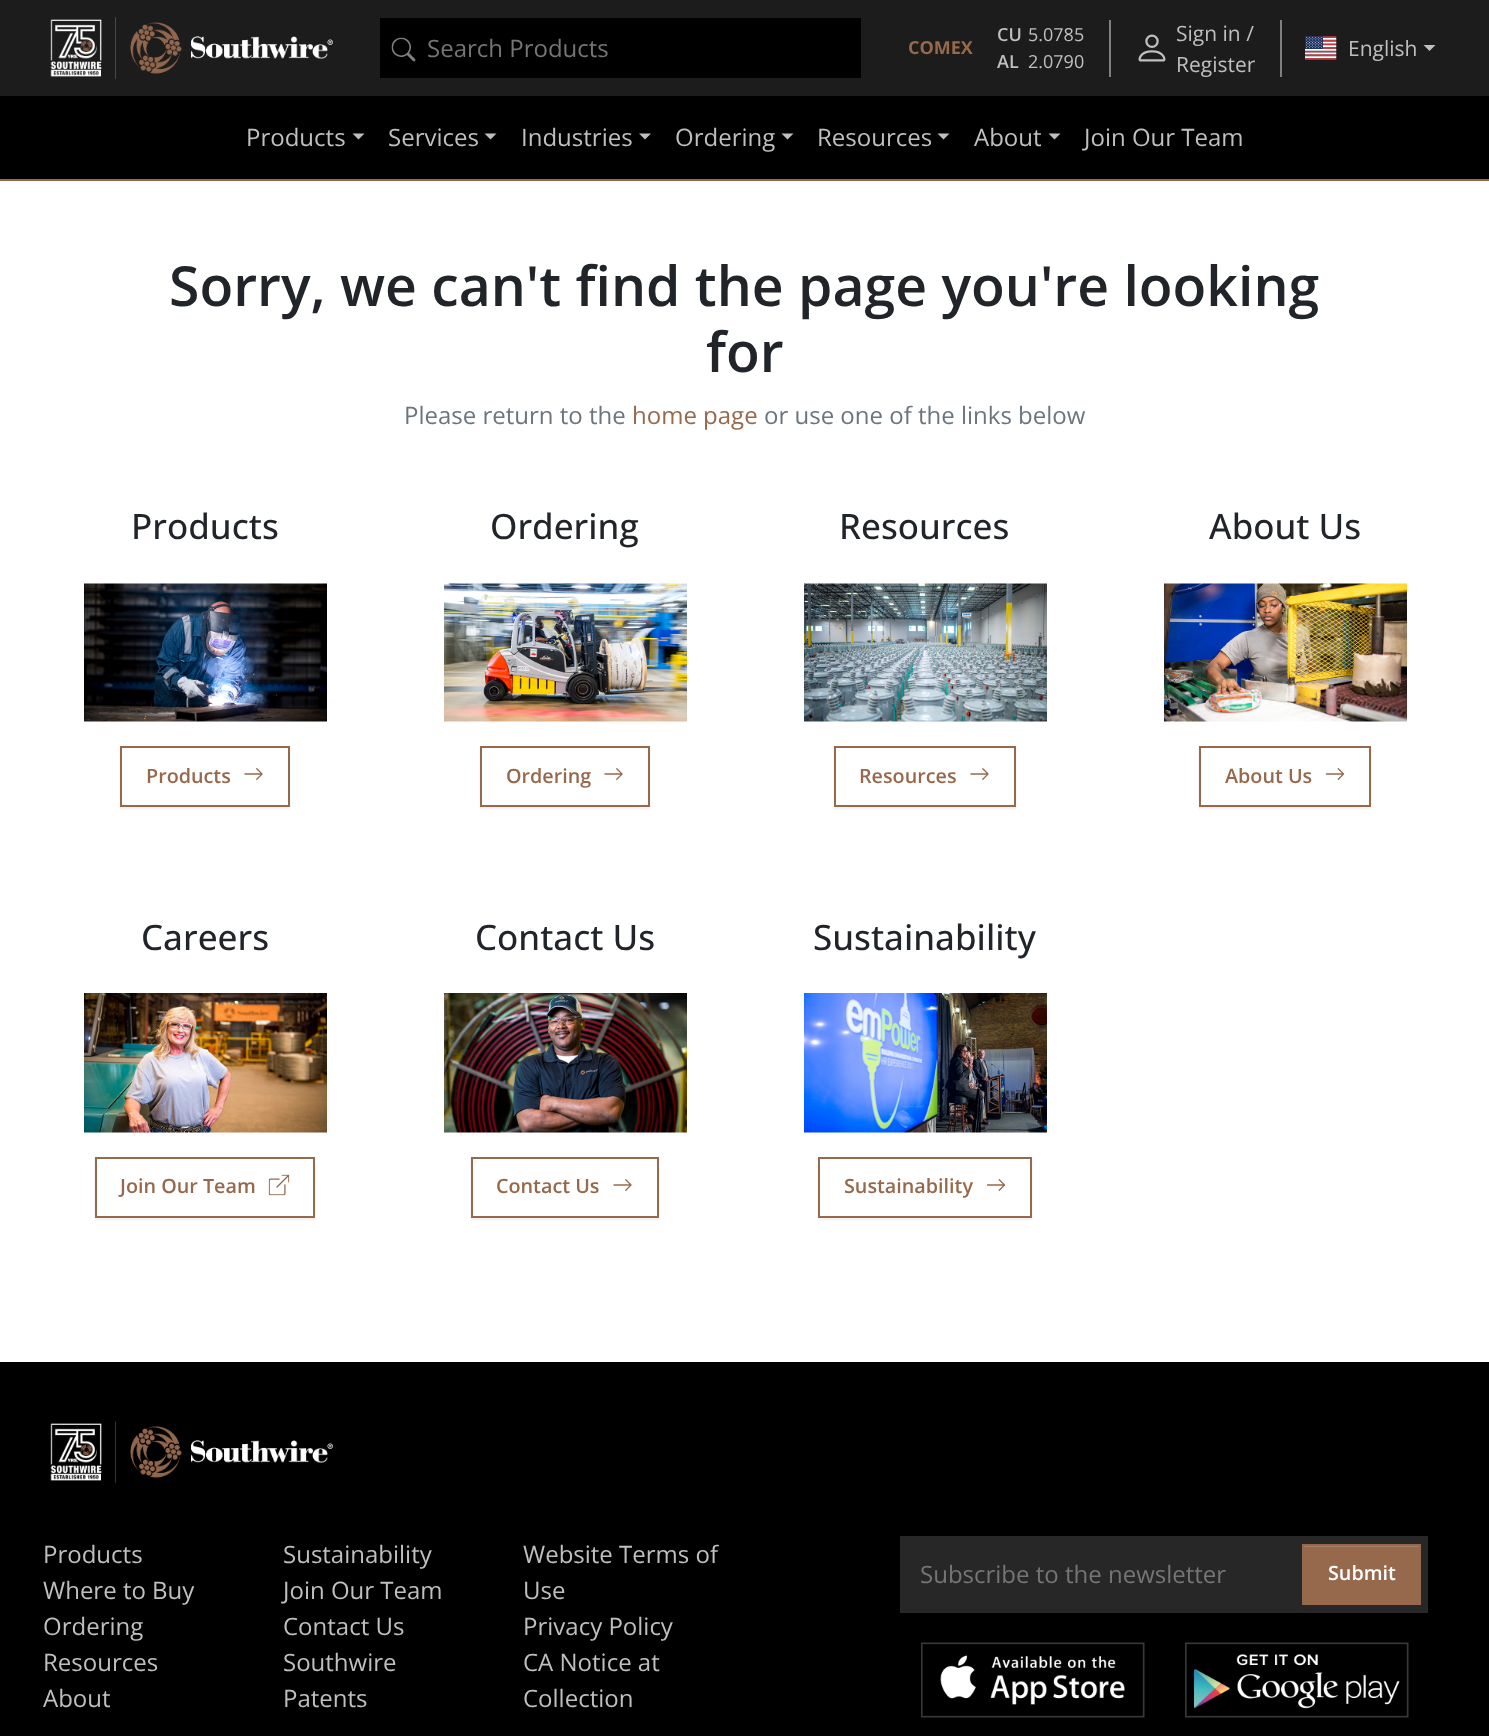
async function draw(canvas) {
  canvas.width = 1489
  canvas.height = 1736
  const ctx = canvas.getContext('2d')
  ctx.miterLimit = 4
  ctx.fontKerning = 'normal'
  async function loadImage(src) {
    const img = new Image()
    img.src = src
    await img.decode()
    return img
  }

  ctx.fillStyle = '#fff'
  ctx.fillRect(0, 0, 1489, 1736)
  ctx.fillStyle = '#000'
  ctx.fillRect(0, 96, 1489, 83)
  ctx.fillStyle = '#1c1c1c'
  ctx.fillRect(0, 0, 1489, 96)
  ctx.drawImage(await loadImage('image0.png'), 50, 17, 283, 63)
  ctx.fillStyle = '#000'
  ctx.fillRect(380, 18, 481, 60)
  ctx.drawImage(await loadImage('image1.png'), 391, 37, 25, 25)
  ctx.font = '24px Open Sans'
  ctx.fillStyle = '#757575'
  ctx.fillText('Search Products', 427, 57)
  ctx.font = 'bold 18px Open Sans'
  ctx.fillStyle = '#96694c'
  ctx.fillText('COMEX', 908, 54)
  ctx.font = '600 18px Open Sans'
  ctx.fillStyle = '#bfbfbf'
  ctx.fillText('CU', 997, 41)
  ctx.font = '18px Open Sans'
  ctx.fillText('5.0785', 1028, 41)
  ctx.font = '600 18px Open Sans'
  ctx.fillText('AL', 997, 68)
  ctx.font = '18px Open Sans'
  ctx.fillText('2.0790', 1028, 68)
  ctx.fillStyle = '#808080'
  ctx.fillRect(1109, 20, 2, 57)
  ctx.drawImage(await loadImage('image2.png'), 1138, 34, 28, 28)
  ctx.font = '21px Open Sans'
  ctx.fillStyle = '#bfbfbf'
  ctx.fillText('Sign in /', 1176, 41)
  ctx.fillText('Register', 1176, 72)
  ctx.fillStyle = '#808080'
  ctx.fillRect(1280, 20, 2, 57)
  ctx.drawImage(await loadImage('image3.png'), 1305, 36, 32, 24)
  ctx.fillStyle = '#bfbfbf'
  ctx.fillText('English', 1348, 56)
  ctx.fillStyle = '#c0c0c0'
  ctx.beginPath()
  ctx.moveTo(1423.5, 45)
  ctx.lineTo(1435.5, 45)
  ctx.lineTo(1429.5, 51)
  ctx.closePath()
  ctx.fill()
  ctx.fillStyle = '#96694c'
  ctx.fillRect(0, 179, 1489, 2)
  ctx.font = '24px Open Sans'
  ctx.fillStyle = '#bfbfbf'
  ctx.fillText('Products', 246, 146)
  ctx.beginPath()
  ctx.moveTo(352.5, 133.5)
  ctx.lineTo(364.5, 133.5)
  ctx.lineTo(358.5, 139.5)
  ctx.closePath()
  ctx.fill()
  ctx.fillText('Services', 388, 146)
  ctx.beginPath()
  ctx.moveTo(484.5, 133.5)
  ctx.lineTo(496.5, 133.5)
  ctx.lineTo(490.5, 139.5)
  ctx.closePath()
  ctx.fill()
  ctx.fillText('Industries', 521, 146)
  ctx.beginPath()
  ctx.moveTo(639, 133.5)
  ctx.lineTo(651, 133.5)
  ctx.lineTo(645, 139.5)
  ctx.closePath()
  ctx.fill()
  ctx.fillText('Ordering', 675, 146)
  ctx.beginPath()
  ctx.moveTo(781.5, 133.5)
  ctx.lineTo(793.5, 133.5)
  ctx.lineTo(787.5, 139.5)
  ctx.closePath()
  ctx.fill()
  ctx.fillText('Resources', 817, 146)
  ctx.beginPath()
  ctx.moveTo(937.5, 133.5)
  ctx.lineTo(949.5, 133.5)
  ctx.lineTo(943.5, 139.5)
  ctx.closePath()
  ctx.fill()
  ctx.fillText('About', 974, 146)
  ctx.beginPath()
  ctx.moveTo(1048.5, 133.5)
  ctx.lineTo(1060.5, 133.5)
  ctx.lineTo(1054.5, 139.5)
  ctx.closePath()
  ctx.fill()
  ctx.fillText('Join Our Team', 1084, 146)
  ctx.font = '600 55.3px Open Sans'
  ctx.fillStyle = '#212529'
  ctx.fillText('Sorry, we can\'t find the page you\'re looking', 169, 306)
  ctx.fillText('for', 706, 372)
  ctx.font = '24px Open Sans'
  ctx.fillStyle = '#6c757d'
  ctx.fillText('Please return to the', 404, 424)
  ctx.fillStyle = '#96694c'
  ctx.fillText('home page', 632, 424)
  ctx.fillStyle = '#6c757d'
  ctx.fillText('or use one of the links below', 764, 424)
  ctx.font = '500 35px Open Sans'
  ctx.fillStyle = '#212529'
  ctx.fillText('Products', 131, 539)
  ctx.drawImage(await loadImage('image4.png'), 84, 583, 243, 139)
  ctx.save()
  ctx.beginPath()
  ctx.moveTo(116, 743)
  ctx.lineTo(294, 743)
  ctx.lineTo(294, 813)
  ctx.lineTo(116, 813)
  ctx.closePath()
  ctx.moveTo(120, 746)
  ctx.lineTo(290, 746)
  ctx.lineTo(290, 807)
  ctx.lineTo(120, 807)
  ctx.closePath()
  ctx.clip('evenodd')
  ctx.fillStyle = '#00000012'
  ctx.filter = 'blur(1px)'
  ctx.beginPath()
  ctx.rect(120, 747, 170, 62)
  ctx.fill()
  ctx.filter = 'none'
  ctx.restore()
  ctx.strokeStyle = '#96694c'
  ctx.lineWidth = 2
  ctx.strokeRect(121, 747, 168, 59)
  ctx.font = '600 19.75px Open Sans'
  ctx.fillStyle = '#96694c'
  ctx.fillText('Products', 146, 783)
  ctx.drawImage(await loadImage('image5.png'), 244, 768, 19, 12)
  ctx.font = '500 35px Open Sans'
  ctx.fillStyle = '#212529'
  ctx.fillText('Ordering', 490, 539)
  ctx.drawImage(await loadImage('image6.png'), 444, 583, 243, 139)
  ctx.save()
  ctx.beginPath()
  ctx.moveTo(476, 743)
  ctx.lineTo(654, 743)
  ctx.lineTo(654, 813)
  ctx.lineTo(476, 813)
  ctx.closePath()
  ctx.moveTo(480, 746)
  ctx.lineTo(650, 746)
  ctx.lineTo(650, 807)
  ctx.lineTo(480, 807)
  ctx.closePath()
  ctx.clip('evenodd')
  ctx.fillStyle = '#00000012'
  ctx.filter = 'blur(1px)'
  ctx.beginPath()
  ctx.rect(480, 747, 170, 62)
  ctx.fill()
  ctx.filter = 'none'
  ctx.restore()
  ctx.strokeRect(481, 747, 168, 59)
  ctx.font = '600 19.75px Open Sans'
  ctx.fillStyle = '#96694c'
  ctx.fillText('Ordering', 506, 783)
  ctx.drawImage(await loadImage('image7.png'), 604, 768, 19, 12)
  ctx.font = '500 35px Open Sans'
  ctx.fillStyle = '#212529'
  ctx.fillText('Resources', 839, 539)
  ctx.drawImage(await loadImage('image8.png'), 804, 583, 243, 139)
  ctx.save()
  ctx.beginPath()
  ctx.moveTo(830, 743)
  ctx.lineTo(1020, 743)
  ctx.lineTo(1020, 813)
  ctx.lineTo(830, 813)
  ctx.closePath()
  ctx.moveTo(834, 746)
  ctx.lineTo(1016, 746)
  ctx.lineTo(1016, 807)
  ctx.lineTo(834, 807)
  ctx.closePath()
  ctx.clip('evenodd')
  ctx.fillStyle = '#00000012'
  ctx.filter = 'blur(1px)'
  ctx.beginPath()
  ctx.rect(834, 747, 182, 62)
  ctx.fill()
  ctx.filter = 'none'
  ctx.restore()
  ctx.strokeRect(835, 747, 180, 59)
  ctx.font = '600 19.75px Open Sans'
  ctx.fillStyle = '#96694c'
  ctx.fillText('Resources', 859, 783)
  ctx.drawImage(await loadImage('image7.png'), 970, 768, 19, 12)
  ctx.font = '500 35px Open Sans'
  ctx.fillStyle = '#212529'
  ctx.fillText('About Us', 1209, 539)
  ctx.drawImage(await loadImage('image9.png'), 1164, 583, 243, 139)
  ctx.save()
  ctx.beginPath()
  ctx.moveTo(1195, 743)
  ctx.lineTo(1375, 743)
  ctx.lineTo(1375, 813)
  ctx.lineTo(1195, 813)
  ctx.closePath()
  ctx.moveTo(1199, 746)
  ctx.lineTo(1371, 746)
  ctx.lineTo(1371, 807)
  ctx.lineTo(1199, 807)
  ctx.closePath()
  ctx.clip('evenodd')
  ctx.fillStyle = '#00000012'
  ctx.filter = 'blur(1px)'
  ctx.beginPath()
  ctx.rect(1199, 747, 172, 62)
  ctx.fill()
  ctx.filter = 'none'
  ctx.restore()
  ctx.strokeRect(1200, 747, 170, 59)
  ctx.font = '600 19.75px Open Sans'
  ctx.fillStyle = '#96694c'
  ctx.fillText('About Us', 1225, 783)
  ctx.drawImage(await loadImage('image10.png'), 1325, 768, 20, 12)
  ctx.font = '500 35px Open Sans'
  ctx.fillStyle = '#212529'
  ctx.fillText('Careers', 141, 950)
  ctx.drawImage(await loadImage('image11.png'), 84, 993, 243, 140)
  ctx.save()
  ctx.beginPath()
  ctx.moveTo(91, 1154)
  ctx.lineTo(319, 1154)
  ctx.lineTo(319, 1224)
  ctx.lineTo(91, 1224)
  ctx.closePath()
  ctx.moveTo(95, 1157)
  ctx.lineTo(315, 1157)
  ctx.lineTo(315, 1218)
  ctx.lineTo(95, 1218)
  ctx.closePath()
  ctx.clip('evenodd')
  ctx.fillStyle = '#00000012'
  ctx.filter = 'blur(1px)'
  ctx.beginPath()
  ctx.rect(95, 1158, 220, 62)
  ctx.fill()
  ctx.filter = 'none'
  ctx.restore()
  ctx.strokeRect(96, 1158, 218, 59)
  ctx.font = '600 19.75px Open Sans'
  ctx.fillStyle = '#96694c'
  ctx.fillText('Join Our Team', 120, 1193)
  ctx.drawImage(await loadImage('image12.png'), 268, 1174, 22, 22)
  ctx.font = '500 35px Open Sans'
  ctx.fillStyle = '#212529'
  ctx.fillText('Contact Us', 475, 950)
  ctx.drawImage(await loadImage('image13.png'), 444, 993, 243, 140)
  ctx.save()
  ctx.beginPath()
  ctx.moveTo(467, 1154)
  ctx.lineTo(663, 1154)
  ctx.lineTo(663, 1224)
  ctx.lineTo(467, 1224)
  ctx.closePath()
  ctx.moveTo(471, 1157)
  ctx.lineTo(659, 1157)
  ctx.lineTo(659, 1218)
  ctx.lineTo(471, 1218)
  ctx.closePath()
  ctx.clip('evenodd')
  ctx.fillStyle = '#00000012'
  ctx.filter = 'blur(1px)'
  ctx.beginPath()
  ctx.rect(471, 1158, 188, 62)
  ctx.fill()
  ctx.filter = 'none'
  ctx.restore()
  ctx.strokeRect(472, 1158, 186, 59)
  ctx.font = '600 19.75px Open Sans'
  ctx.fillStyle = '#96694c'
  ctx.fillText('Contact Us', 496, 1193)
  ctx.drawImage(await loadImage('image7.png'), 613, 1179, 19, 12)
  ctx.font = '500 35px Open Sans'
  ctx.fillStyle = '#212529'
  ctx.fillText('Sustainability', 813, 950)
  ctx.drawImage(await loadImage('image14.png'), 804, 993, 243, 140)
  ctx.save()
  ctx.beginPath()
  ctx.moveTo(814, 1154)
  ctx.lineTo(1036, 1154)
  ctx.lineTo(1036, 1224)
  ctx.lineTo(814, 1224)
  ctx.closePath()
  ctx.moveTo(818, 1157)
  ctx.lineTo(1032, 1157)
  ctx.lineTo(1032, 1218)
  ctx.lineTo(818, 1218)
  ctx.closePath()
  ctx.clip('evenodd')
  ctx.fillStyle = '#00000012'
  ctx.filter = 'blur(1px)'
  ctx.beginPath()
  ctx.rect(818, 1158, 214, 62)
  ctx.fill()
  ctx.filter = 'none'
  ctx.restore()
  ctx.strokeRect(819, 1158, 212, 59)
  ctx.font = '600 19.75px Open Sans'
  ctx.fillStyle = '#96694c'
  ctx.fillText('Sustainability', 844, 1193)
  ctx.drawImage(await loadImage('image10.png'), 986, 1179, 20, 12)
  ctx.fillStyle = '#000'
  ctx.fillRect(0, 1362, 1489, 374)
  ctx.drawImage(await loadImage('image15.png'), 50, 1421, 283, 63)
  ctx.font = '24px Open Sans'
  ctx.fillStyle = '#bfbfbf'
  ctx.fillText('Products', 43, 1563)
  ctx.fillText('Where to Buy', 43, 1599)
  ctx.fillText('Ordering', 43, 1635)
  ctx.fillText('Resources', 43, 1671)
  ctx.fillText('About', 43, 1707)
  ctx.fillText('Sustainability', 283, 1563)
  ctx.fillText('Join Our Team', 283, 1599)
  ctx.fillText('Contact Us', 283, 1635)
  ctx.fillText('Southwire', 283, 1671)
  ctx.fillText('Patents', 283, 1707)
  ctx.fillText('Website Terms of', 523, 1563)
  ctx.fillText('Use', 523, 1599)
  ctx.fillText('Privacy Policy', 523, 1635)
  ctx.fillText('CA Notice at', 523, 1671)
  ctx.fillText('Collection', 523, 1707)
  ctx.fillStyle = '#272728'
  ctx.fillRect(900, 1536, 528, 77)
  ctx.fillStyle = '#757575'
  ctx.fillText('Subscribe to the newsletter', 920, 1583)
  ctx.fillStyle = '#96694c'
  ctx.fillRect(1304, 1547, 115, 56)
  ctx.fillStyle = '#a68067'
  ctx.fillRect(1304, 1546, 115, 1)
  ctx.strokeRect(1303, 1545, 117, 59)
  ctx.font = '600 19.75px Open Sans'
  ctx.fillStyle = '#fff'
  ctx.fillText('Submit', 1328, 1580)
  ctx.drawImage(await loadImage('image16.png'), 921, 1642, 224, 76)
  ctx.drawImage(await loadImage('image17.png'), 1185, 1642, 224, 76)
}

draw(document.querySelector('canvas'))
